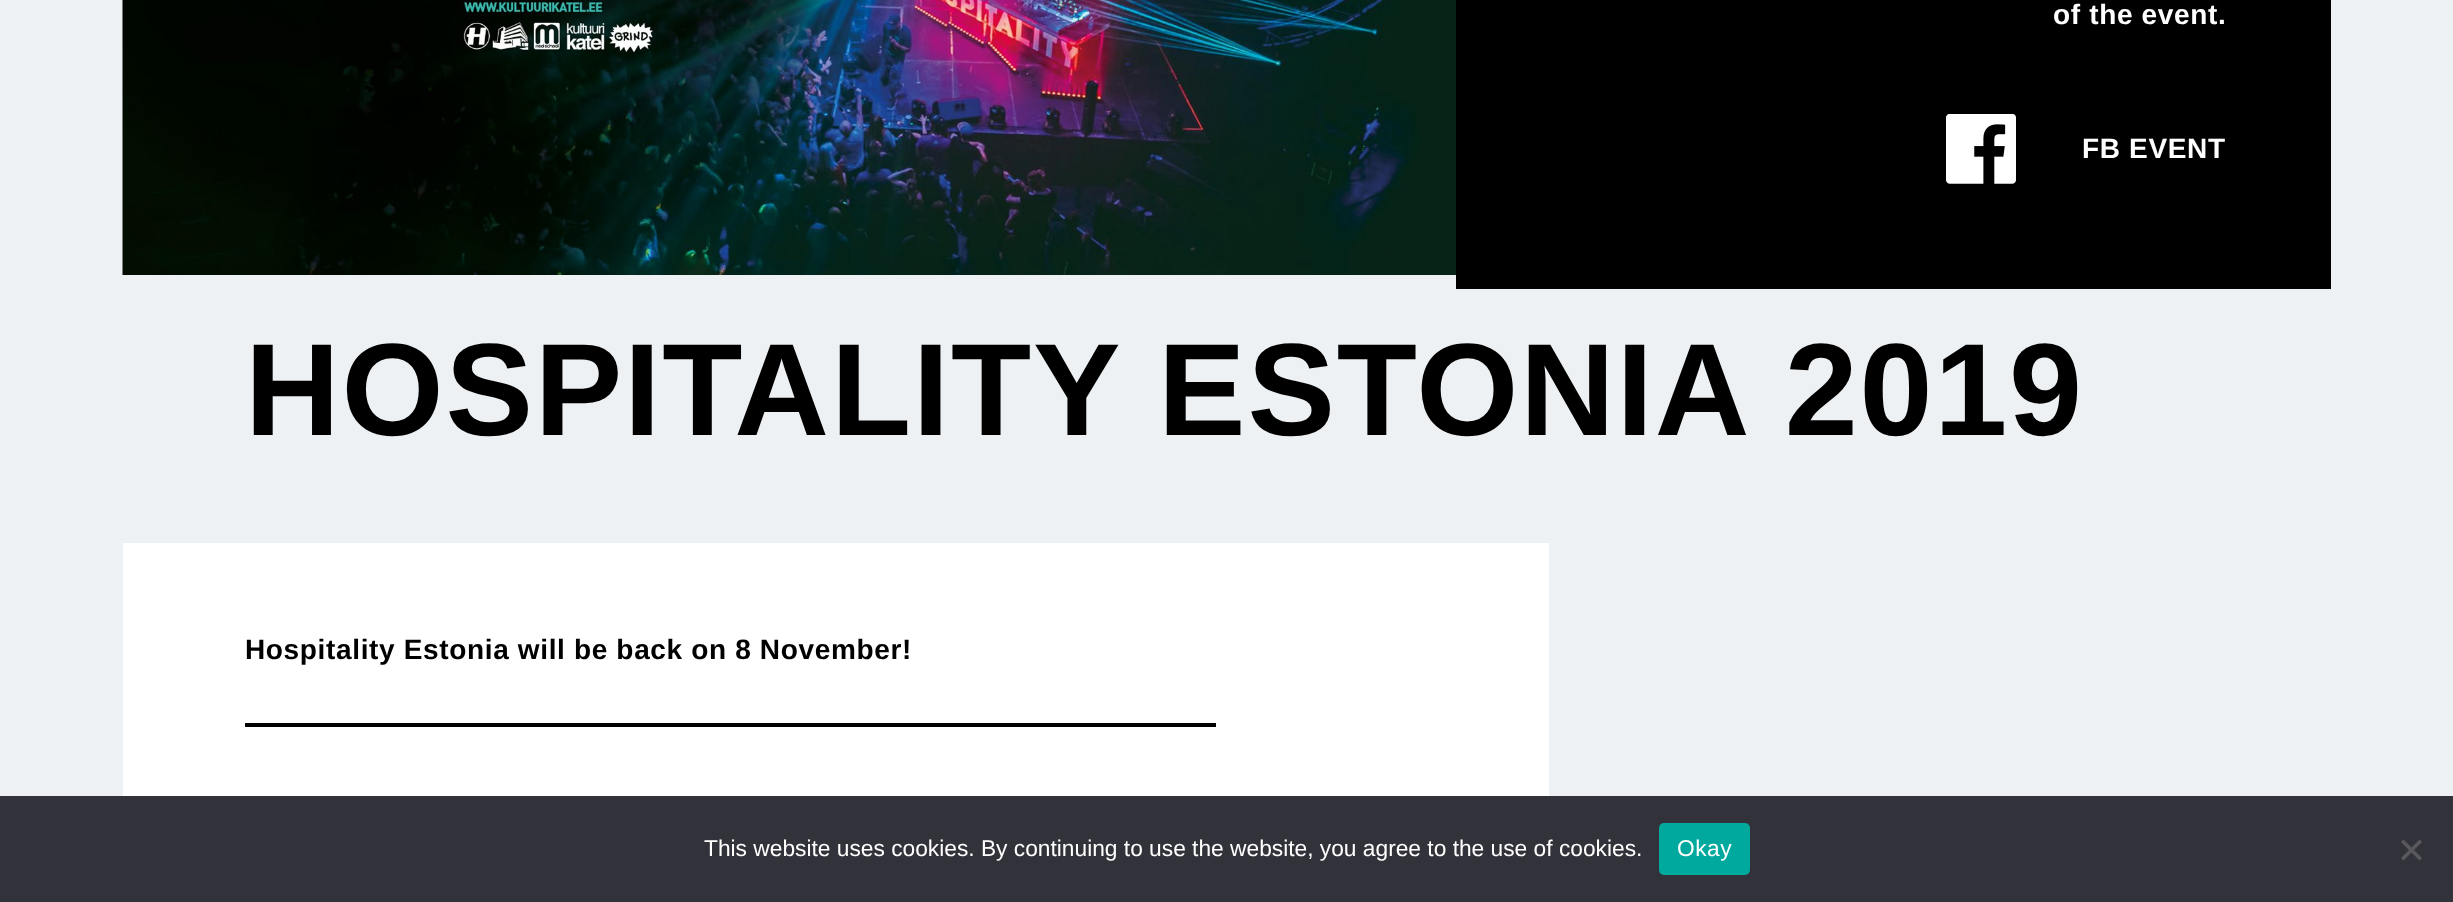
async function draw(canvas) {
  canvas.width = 2453
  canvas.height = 902
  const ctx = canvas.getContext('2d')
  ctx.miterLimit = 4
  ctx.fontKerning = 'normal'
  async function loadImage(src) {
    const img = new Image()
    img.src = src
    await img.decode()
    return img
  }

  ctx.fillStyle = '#edf1f4'
  ctx.fillRect(0, 0, 2453, 902)
  ctx.drawImage(await loadImage('image0.png'), 122, 0, 1334, 275)
  ctx.fillStyle = '#000'
  ctx.fillRect(1456, 0, 875, 289)
  ctx.letterSpacing = '0.65px'
  ctx.font = 'bold 28px Liberation Sans'
  ctx.fillStyle = '#fff'
  ctx.fillText('of the event.', 2053, 24)
  ctx.drawImage(await loadImage('image1.png'), 1946, 114, 70, 70)
  ctx.fillText('FB EVENT', 2082, 158)
  ctx.letterSpacing = '1.75px'
  ctx.font = 'bold 131.25px Liberation Sans'
  ctx.fillStyle = '#000'
  ctx.fillText('HOSPITALITY ESTONIA 2019', 245, 435)
  ctx.fillStyle = '#fff'
  ctx.fillRect(123, 543, 1426, 253)
  ctx.letterSpacing = '0.65px'
  ctx.font = 'bold 28px Liberation Sans'
  ctx.fillStyle = '#000'
  ctx.fillText('Hospitality Estonia will be back on 8 November!', 245, 659)
  ctx.fillRect(245, 723, 971, 4)
  ctx.fillStyle = '#32323a'
  ctx.fillRect(0, 796, 2453, 106)
  ctx.letterSpacing = '0px'
  ctx.font = '22.75px Liberation Sans'
  ctx.fillStyle = '#fff'
  ctx.fillText('This website uses cookies. By continuing to use the website, you agree to the use of cookies.', 704, 856)
  ctx.fillStyle = '#00a99d'
  ctx.beginPath()
  ctx.roundRect(1659, 823, 91, 52, 5)
  ctx.fill()
  ctx.letterSpacing = '0.5px'
  ctx.fillStyle = '#fff'
  ctx.fillText('Okay', 1677, 856)
  ctx.fillStyle = '#59595d'
  ctx.beginPath()
  ctx.moveTo(2419.5, 839.5)
  ctx.lineTo(2422, 842)
  ctx.lineTo(2403.5, 860.5)
  ctx.lineTo(2401, 858)
  ctx.closePath()
  ctx.fill()
  ctx.beginPath()
  ctx.moveTo(2401, 842)
  ctx.lineTo(2403.5, 839.5)
  ctx.lineTo(2422, 858)
  ctx.lineTo(2419.5, 860.5)
  ctx.closePath()
  ctx.fill()
}

draw(document.querySelector('canvas'))
